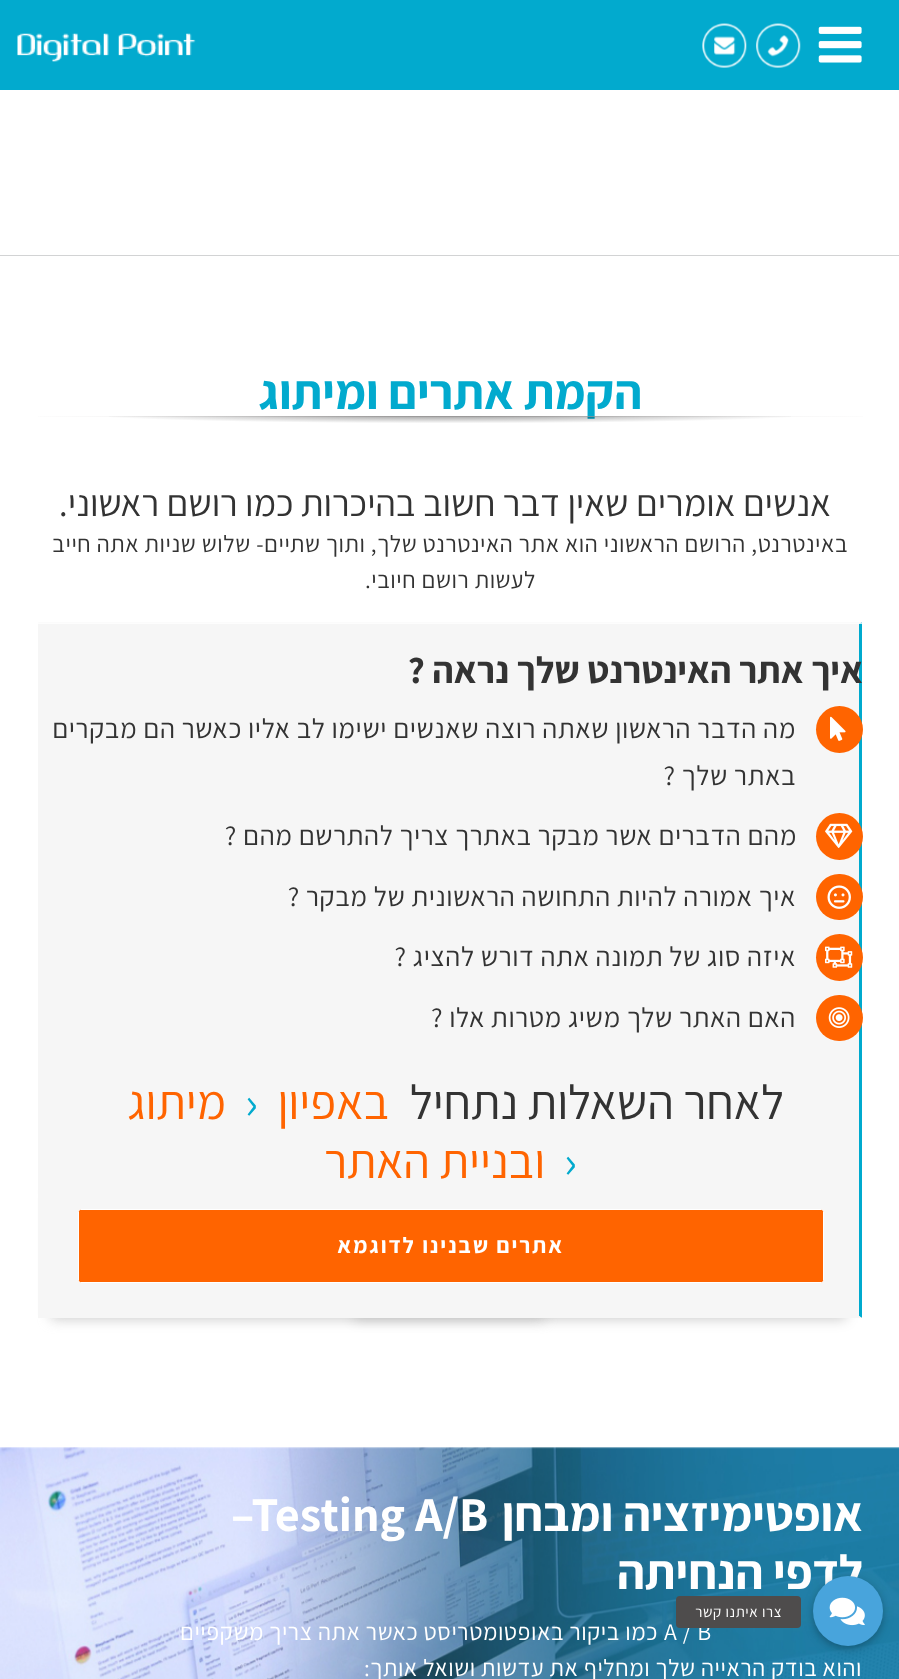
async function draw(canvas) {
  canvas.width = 899
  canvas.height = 1679
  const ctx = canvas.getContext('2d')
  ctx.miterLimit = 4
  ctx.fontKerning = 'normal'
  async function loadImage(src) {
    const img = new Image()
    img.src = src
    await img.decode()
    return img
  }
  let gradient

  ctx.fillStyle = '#fff'
  ctx.fillRect(0, 0, 899, 1679)
  ctx.fillStyle = '#02aace'
  ctx.fillRect(0, 0, 899, 90)
  ctx.drawImage(await loadImage('image0.png'), 818, 26, 44, 37)
  ctx.drawImage(await loadImage('image1.png'), 756, 23, 45, 45)
  ctx.drawImage(await loadImage('image2.png'), 702, 23, 45, 45)
  ctx.drawImage(await loadImage('image3.png'), 17, 33, 179, 29)
  ctx.fillStyle = '#d2d3d4'
  ctx.fillRect(0, 255, 899, 1)
  ctx.direction = 'rtl'
  ctx.font = 'bold 48.5px Assistant'
  ctx.fillStyle = '#02aace'
  ctx.fillText('הקמת אתרים ומיתוג', 642, 409)
  gradient = ctx.createRadialGradient(450, 89825.19, 0, 450, 89825.19, 583)
  gradient.addColorStop(0, '#e0dede')
  gradient.addColorStop(0.8, '#e0dede00')
  ctx.fillStyle = gradient
  ctx.beginPath()
  ctx.rect(38, 416, 825, 1)
  ctx.save()
  ctx.clip()
  ctx.scale(1, 2.7 / 583)
  ctx.fillRect(0, 0, 899, 362540)
  ctx.restore()
  gradient = ctx.createRadialGradient(450, 15048.69, 0, 450, 15048.69, 583)
  gradient.addColorStop(0, '#00000080')
  gradient.addColorStop(0.65, '#00000000')
  ctx.fillStyle = gradient
  ctx.beginPath()
  ctx.rect(109, 416, 682, 7)
  ctx.save()
  ctx.clip()
  ctx.scale(1, 16 / 583)
  ctx.fillRect(0, 0, 899, 61179)
  ctx.restore()
  ctx.font = '37.3px Assistant'
  ctx.fillStyle = '#333'
  ctx.fillText('אנשים אומרים שאין דבר חשוב בהיכרות כמו רושם ראשוני.', 831, 516)
  ctx.letterSpacing = '0.62px'
  ctx.font = '23.75px Assistant'
  ctx.fillText('באינטרנט, הרושם הראשוני הוא אתר האינטרנט שלך, ותוך שתיים- שלוש שניות אתה חייב', 848, 552)
  ctx.fillText('לעשות רושם חיובי.', 536, 588)
  ctx.fillStyle = '#f6f6f6'
  ctx.beginPath()
  ctx.moveTo(38, 622)
  ctx.lineTo(862, 622)
  ctx.lineTo(859, 624)
  ctx.lineTo(39, 624)
  ctx.closePath()
  ctx.fill()
  ctx.fillStyle = '#00000036'
  ctx.filter = 'blur(6.5px)'
  ctx.beginPath()
  ctx.rect(354, 1194, 492, 125)
  ctx.fill()
  ctx.filter = 'none'
  ctx.fillStyle = '#00aace'
  ctx.beginPath()
  ctx.moveTo(862, 622)
  ctx.lineTo(862, 1318)
  ctx.lineTo(859, 1316)
  ctx.lineTo(859, 624)
  ctx.closePath()
  ctx.fill()
  ctx.fillStyle = '#b3b3b3b3'
  ctx.filter = 'blur(6.5px)'
  ctx.beginPath()
  ctx.rect(51, 1194, 493, 125)
  ctx.fill()
  ctx.filter = 'none'
  ctx.fillStyle = '#f6f6f6'
  ctx.beginPath()
  ctx.moveTo(862, 1318)
  ctx.lineTo(38, 1318)
  ctx.lineTo(39, 1316)
  ctx.lineTo(859, 1316)
  ctx.closePath()
  ctx.fill()
  ctx.fillRect(38, 623, 1, 695)
  ctx.drawImage(await loadImage('image4.png'), 38, 622, 824, 2)
  ctx.fillRect(39, 624, 820, 692)
  ctx.letterSpacing = '0px'
  ctx.font = 'bold 37.3px Assistant'
  ctx.fillStyle = '#333'
  ctx.fillText('איך אתר האינטרנט שלך נראה ?', 863, 683)
  ctx.fillStyle = '#ff6400'
  ctx.beginPath()
  ctx.arc(839.5, 729.5, 23.5, 0, 2 * Math.PI)
  ctx.fill()
  ctx.drawImage(await loadImage('image5.png'), 830, 716, 16, 25)
  ctx.letterSpacing = '0.62px'
  ctx.font = '27.5px Assistant'
  ctx.fillStyle = '#333'
  ctx.fillText('מה הדבר הראשון שאתה רוצה שאנשים ישימו לב אליו כאשר הם מבקרים', 796, 738)
  ctx.fillText('באתר שלך ?', 796, 785)
  ctx.fillStyle = '#ff6400'
  ctx.beginPath()
  ctx.arc(839.5, 836.5, 23.5, 0, 2 * Math.PI)
  ctx.fill()
  ctx.drawImage(await loadImage('image6.png'), 825, 823, 28, 25)
  ctx.fillStyle = '#333'
  ctx.fillText('מהם הדברים אשר מבקר באתרך צריך להתרשם מהם ?', 797, 845)
  ctx.fillStyle = '#ff6400'
  ctx.beginPath()
  ctx.roundRect(816, 874, 47, 46, 23)
  ctx.fill()
  ctx.drawImage(await loadImage('image7.png'), 827, 885, 24, 24)
  ctx.fillStyle = '#333'
  ctx.fillText('איך אמורה להיות התחושה הראשונית של מבקר ?', 796, 906)
  ctx.fillStyle = '#ff6400'
  ctx.beginPath()
  ctx.arc(839.5, 957.5, 23.5, 0, 2 * Math.PI)
  ctx.fill()
  ctx.drawImage(await loadImage('image8.png'), 825, 946, 28, 22)
  ctx.fillStyle = '#333'
  ctx.fillText('איזה סוג של תמונה אתה דורש להציג ?', 796, 966)
  ctx.fillStyle = '#ff6400'
  ctx.beginPath()
  ctx.roundRect(816, 995, 47, 46, 23)
  ctx.fill()
  ctx.drawImage(await loadImage('image9.png'), 828, 1007, 22, 21)
  ctx.fillStyle = '#333'
  ctx.fillText('האם האתר שלך משיג מטרות אלו ?', 796, 1027)
  ctx.letterSpacing = '0px'
  ctx.font = '48.5px Assistant'
  ctx.fillText('לאחר השאלות נתחיל', 784, 1119)
  ctx.fillStyle = '#ff6400'
  ctx.fillText('באפיון', 389, 1119)
  ctx.direction = 'ltr'
  ctx.fillStyle = '#02aace'
  ctx.fillText('›', 245, 1119)
  ctx.direction = 'rtl'
  ctx.fillStyle = '#ff6400'
  ctx.fillText('מיתוג', 226, 1119)
  ctx.direction = 'ltr'
  ctx.fillStyle = '#02aace'
  ctx.fillText('›', 564, 1178)
  ctx.direction = 'rtl'
  ctx.fillStyle = '#ff6400'
  ctx.fillText('ובניית האתר', 545, 1178)
  ctx.beginPath()
  ctx.roundRect(78.5, 1209.5, 745, 73, 2)
  ctx.fill()
  ctx.strokeStyle = '#fff'
  ctx.stroke()
  ctx.letterSpacing = '1.9px'
  ctx.font = 'bold 22.5px Assistant'
  ctx.fillStyle = '#fff'
  ctx.fillText('אתרים שבנינו לדוגמא', 564, 1253)
  ctx.drawImage(await loadImage('image10.png'), 0, 1447, 899, 232)
  ctx.letterSpacing = '0px'
  ctx.font = 'bold 48.5px Assistant'
  ctx.fillText('אופטימיזציה ומבחן', 863, 1531)
  ctx.direction = 'ltr'
  ctx.fillText('–Testing A/B', 231, 1531)
  ctx.direction = 'rtl'
  ctx.fillText('לדפי הנחיתה', 863, 1589)
  ctx.letterSpacing = '0.62px'
  ctx.direction = 'ltr'
  ctx.font = '23.75px Assistant'
  ctx.fillText('A / B', 664, 1640)
  ctx.direction = 'rtl'
  ctx.fillText('כמו ביקור באופטומטריסט כאשר אתה צריך משקפיים', 658, 1640)
  ctx.fillText('והוא בודק הראייה שלך ומחליף את עדשות ושואל אותך:', 862, 1676)
  ctx.fillStyle = '#0000001f'
  ctx.filter = 'blur(6px)'
  ctx.beginPath()
  ctx.roundRect(813, 1579, 70, 70, 35)
  ctx.fill()
  ctx.filter = 'none'
  ctx.fillStyle = '#00000029'
  ctx.filter = 'blur(3px)'
  ctx.beginPath()
  ctx.roundRect(813, 1579, 70, 70, 35)
  ctx.fill()
  ctx.filter = 'none'
  ctx.fillStyle = '#48a4dc'
  ctx.beginPath()
  ctx.arc(848, 1611, 35, 0, 2 * Math.PI)
  ctx.fill()
  ctx.drawImage(await loadImage('image11.png'), 829, 1597, 36, 29)
  ctx.fillStyle = '#4e4c4c'
  ctx.beginPath()
  ctx.roundRect(676, 1596, 125, 32, 4)
  ctx.fill()
  ctx.font = '15px Assistant'
  ctx.fillStyle = '#fff'
  ctx.fillText('צרו איתנו קשר', 782, 1617)
}

draw(document.querySelector('canvas'))
